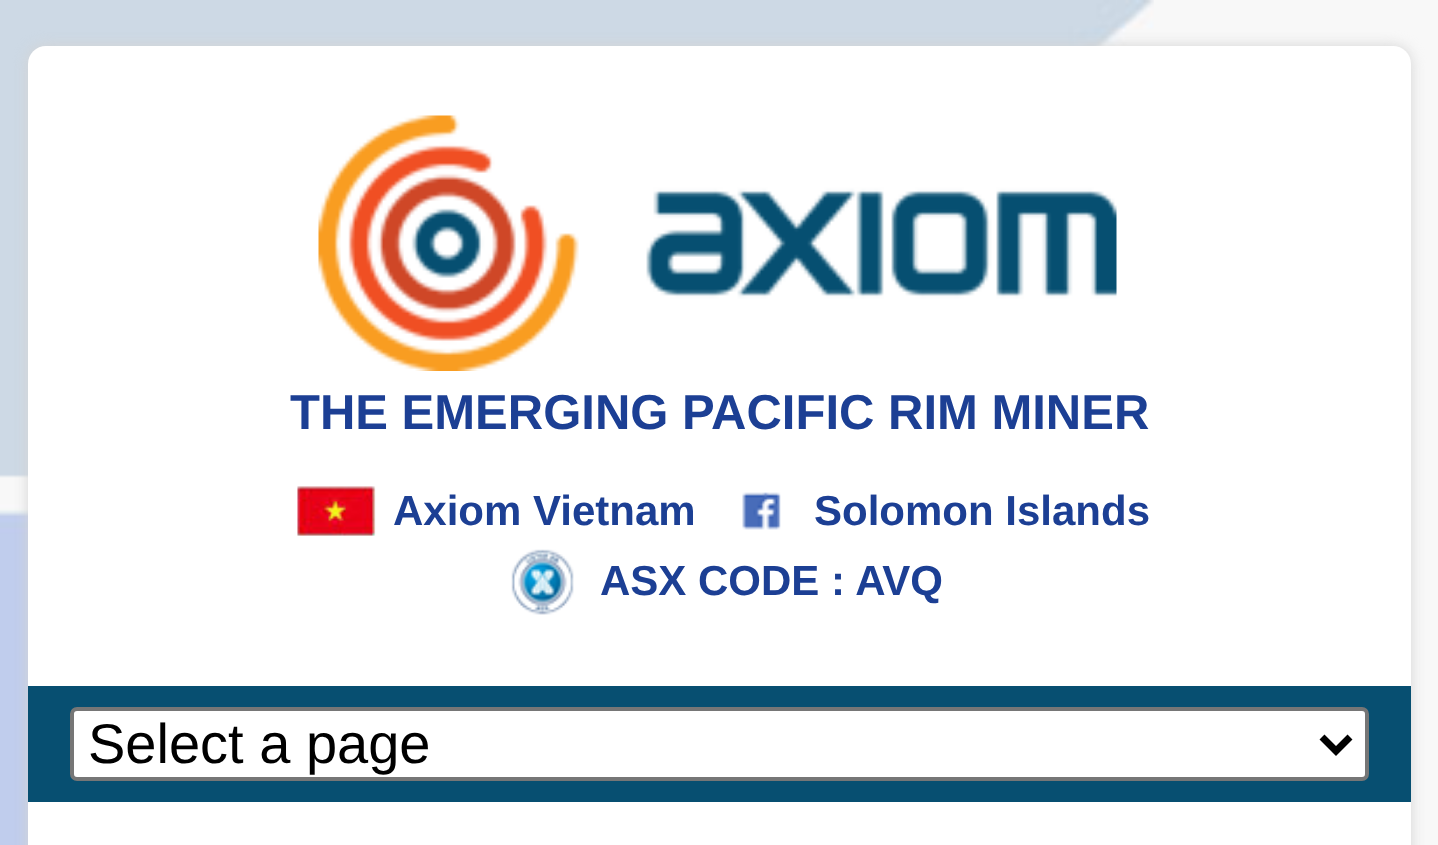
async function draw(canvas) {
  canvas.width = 1438
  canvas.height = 845
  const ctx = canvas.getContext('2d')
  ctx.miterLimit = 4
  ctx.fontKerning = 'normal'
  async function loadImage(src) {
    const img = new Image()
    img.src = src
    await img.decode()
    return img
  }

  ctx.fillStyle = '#f8f8f8'
  ctx.fillRect(0, 0, 1438, 845)
  ctx.drawImage(await loadImage('image0.png'), 0, 0, 1154, 845)
  ctx.fillStyle = '#d4d4d4'
  ctx.filter = 'blur(7px)'
  ctx.beginPath()
  ctx.roundRect(28, 46, 1383, 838, 18)
  ctx.fill()
  ctx.filter = 'none'
  ctx.fillStyle = '#fff'
  ctx.beginPath()
  ctx.roundRect(28, 46, 1383, 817, 18)
  ctx.fill()
  ctx.drawImage(await loadImage('image1.png'), 318, 115, 799, 256)
  ctx.font = 'bold 49px Liberation Sans'
  ctx.fillStyle = '#1c3f94'
  ctx.fillText('THE EMERGING PACIFIC RIM MINER', 290, 429)
  ctx.drawImage(await loadImage('image2.png'), 297, 486, 79, 50)
  ctx.font = 'bold 42px Liberation Sans'
  ctx.fillText('Axiom Vietnam', 393, 525)
  ctx.drawImage(await loadImage('image3.png'), 742, 492, 39, 38)
  ctx.fillText('Solomon Islands', 814, 525)
  ctx.drawImage(await loadImage('image4.png'), 511, 549, 63, 66)
  ctx.fillText('ASX CODE : AVQ', 600, 595)
  ctx.fillStyle = '#074f71'
  ctx.fillRect(28, 686, 1383, 116)
  ctx.fillStyle = '#fff'
  ctx.beginPath()
  ctx.roundRect(72, 709, 1295, 70, 5)
  ctx.fill()
  ctx.strokeStyle = '#767676'
  ctx.lineWidth = 4
  ctx.stroke()
  ctx.beginPath()
  ctx.moveTo(1322, 737)
  ctx.lineTo(1336, 751)
  ctx.lineTo(1350, 737)
  ctx.strokeStyle = '#000'
  ctx.lineWidth = 7
  ctx.stroke()
  ctx.font = '56px Liberation Sans'
  ctx.fillStyle = '#000'
  ctx.fillText('Select a page', 88, 763)
}

draw(document.querySelector('canvas'))
